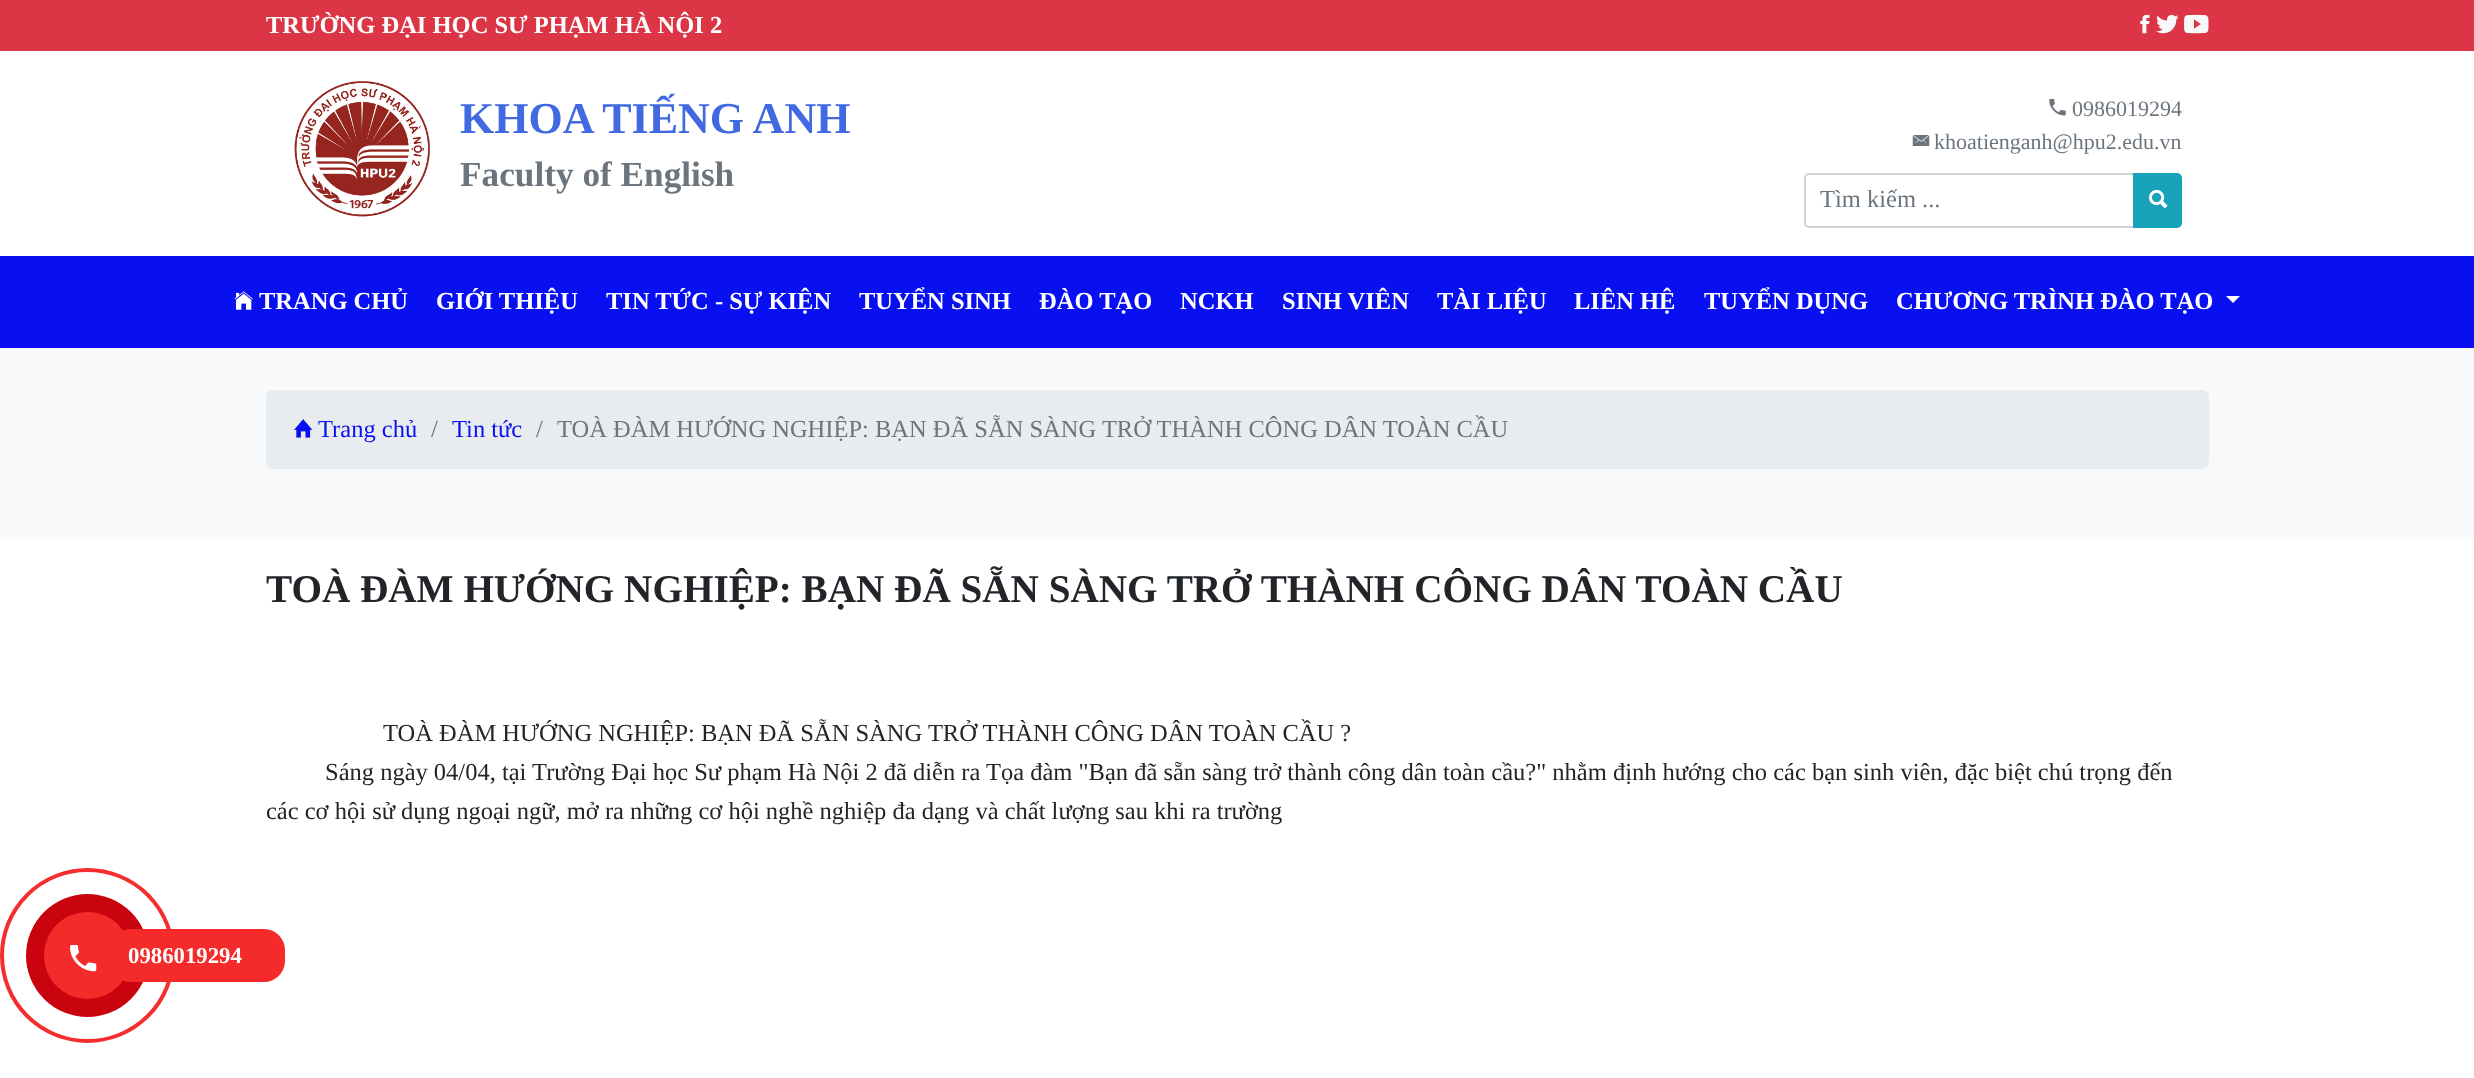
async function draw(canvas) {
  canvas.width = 2474
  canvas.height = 1078
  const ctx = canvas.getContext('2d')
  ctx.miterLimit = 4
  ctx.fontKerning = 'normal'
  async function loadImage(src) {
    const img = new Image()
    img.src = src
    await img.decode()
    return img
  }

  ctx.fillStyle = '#fff'
  ctx.fillRect(0, 0, 2474, 1078)
  ctx.fillStyle = '#dc3545'
  ctx.fillRect(0, 0, 2474, 51)
  ctx.font = 'bold 24.5px Liberation Serif'
  ctx.fillStyle = '#fff'
  ctx.fillText('TRƯỜNG ĐẠI HỌC SƯ PHẠM HÀ NỘI 2', 266, 33)
  ctx.drawImage(await loadImage('image0.png'), 2140, 14, 10, 20)
  ctx.drawImage(await loadImage('image1.png'), 2156, 14, 23, 20)
  ctx.drawImage(await loadImage('image2.png'), 2184, 14, 25, 20)
  ctx.drawImage(await loadImage('image3.png'), 294, 81, 136, 136)
  ctx.font = 'bold 44px Liberation Serif'
  ctx.fillStyle = '#4169e1'
  ctx.fillText('KHOA TIẾNG ANH', 460, 133)
  ctx.font = 'bold 35.25px Liberation Serif'
  ctx.fillStyle = '#6c757d'
  ctx.fillText('Faculty of English', 460, 186)
  ctx.drawImage(await loadImage('image4.png'), 2049, 98, 17, 18)
  ctx.font = '22px Liberation Serif'
  ctx.fillText('0986019294', 2072, 116)
  ctx.drawImage(await loadImage('image5.png'), 1912, 135, 18, 11)
  ctx.fillText('khoatienganh@hpu2.edu.vn', 1934, 149)
  ctx.beginPath()
  ctx.roundRect(1805, 174, 329, 53, [4, 0, 0, 4])
  ctx.strokeStyle = '#ced4da'
  ctx.lineWidth = 2
  ctx.stroke()
  ctx.font = '24.5px Liberation Serif'
  ctx.fillText('Tìm kiếm ...', 1820, 207)
  ctx.fillStyle = '#17a2b8'
  ctx.beginPath()
  ctx.roundRect(2134, 174, 47, 53, [0, 4, 4, 0])
  ctx.fill()
  ctx.strokeStyle = '#17a2b8'
  ctx.stroke()
  ctx.drawImage(await loadImage('image6.png'), 2149, 189, 19, 20)
  ctx.fillStyle = '#0810f1'
  ctx.fillRect(0, 256, 2474, 92)
  ctx.drawImage(await loadImage('image7.png'), 234, 291, 19, 19)
  ctx.font = 'bold 24.5px Liberation Serif'
  ctx.fillStyle = '#fff'
  ctx.fillText('TRANG CHỦ', 259, 309)
  ctx.fillText('GIỚI THIỆU', 436, 309)
  ctx.fillText('TIN TỨC - SỰ KIỆN', 606, 309)
  ctx.fillText('TUYỂN SINH', 859, 309)
  ctx.fillText('ĐÀO TẠO', 1039, 309)
  ctx.fillText('NCKH', 1180, 309)
  ctx.fillText('SINH VIÊN', 1282, 309)
  ctx.fillText('TÀI LIỆU', 1437, 309)
  ctx.fillText('LIÊN HỆ', 1574, 309)
  ctx.fillText('TUYỂN DỤNG', 1704, 309)
  ctx.fillText('CHƯƠNG TRÌNH ĐÀO TẠO', 1896, 309)
  ctx.beginPath()
  ctx.moveTo(2226, 296)
  ctx.lineTo(2240, 296)
  ctx.lineTo(2233, 303)
  ctx.closePath()
  ctx.fill()
  ctx.fillStyle = '#f8f9fa'
  ctx.fillRect(0, 348, 2474, 191)
  ctx.fillStyle = '#e9ecef'
  ctx.beginPath()
  ctx.roundRect(266, 390, 1943, 79, 7)
  ctx.fill()
  ctx.drawImage(await loadImage('image8.png'), 294, 419, 19, 19)
  ctx.font = '24.5px Liberation Serif'
  ctx.fillStyle = '#0810f1'
  ctx.fillText('Trang chủ', 318, 437)
  ctx.fillStyle = '#6c757d'
  ctx.fillText('/', 431, 437)
  ctx.fillStyle = '#0810f1'
  ctx.fillText('Tin tức', 452, 437)
  ctx.fillStyle = '#6c757d'
  ctx.fillText('/', 536, 437)
  ctx.fillText('TOÀ ĐÀM HƯỚNG NGHIỆP: BẠN ĐÃ SẴN SÀNG TRỞ THÀNH CÔNG DÂN TOÀN CẦU', 557, 437)
  ctx.font = 'bold 39.2px Liberation Serif'
  ctx.fillStyle = '#212529'
  ctx.fillText('TOÀ ĐÀM HƯỚNG NGHIỆP: BẠN ĐÃ SẴN SÀNG TRỞ THÀNH CÔNG DÂN TOÀN CẦU', 266, 602)
  ctx.font = '24.5px Liberation Serif'
  ctx.fillText('TOÀ ĐÀM HƯỚNG NGHIỆP: BẠN ĐÃ SẴN SÀNG TRỞ THÀNH CÔNG DÂN TOÀN CẦU ?', 383, 741)
  ctx.fillText('Sáng ngày 04/04, tại Trường Đại học Sư phạm Hà Nội 2 đã diễn ra Tọa đàm "Bạn đã sẵn sàng trở thành công dân toàn cầu?" nhằm định hướng cho các bạn sinh viên, đặc biệt chú trọng đến', 325, 780)
  ctx.fillText('các cơ hội sử dụng ngoại ngữ, mở ra những cơ hội nghề nghiệp đa dạng và chất lượng sau khi ra trường', 266, 819)
  ctx.beginPath()
  ctx.arc(87.5, 955.5, 85.5, 0, 2 * Math.PI)
  ctx.strokeStyle = '#f52d2d'
  ctx.lineWidth = 4
  ctx.stroke()
  ctx.fillStyle = '#ca040e'
  ctx.beginPath()
  ctx.arc(87.5, 955.5, 61.5, 0, 2 * Math.PI)
  ctx.fill()
  ctx.fillStyle = '#f52b2b'
  ctx.beginPath()
  ctx.arc(87.5, 955.5, 43.5, 0, 2 * Math.PI)
  ctx.fill()
  ctx.drawImage(await loadImage('image9.png'), 70, 945, 27, 27)
  ctx.beginPath()
  ctx.roundRect(110, 929, 175, 53, 21)
  ctx.fill()
  ctx.font = 'bold 22.75px Liberation Serif'
  ctx.fillStyle = '#fff'
  ctx.fillText('0986019294', 128, 963)
}

draw(document.querySelector('canvas'))
